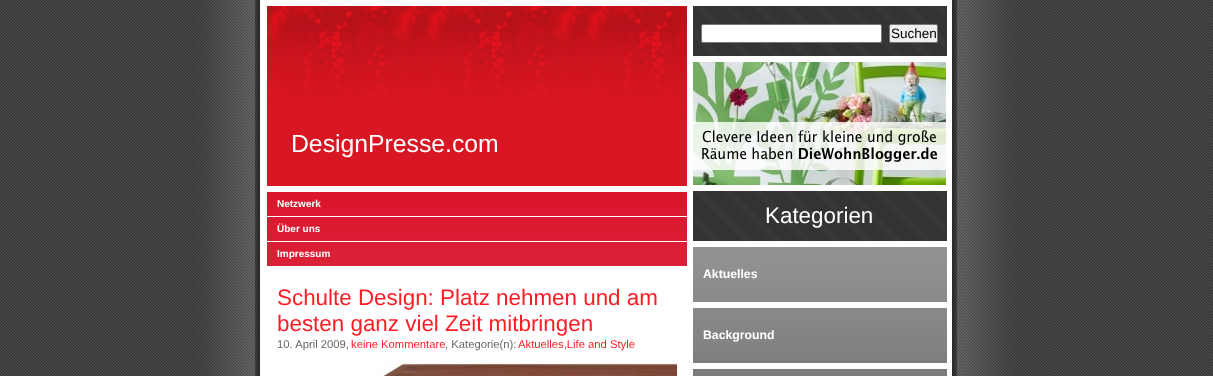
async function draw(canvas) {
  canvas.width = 1213
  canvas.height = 376
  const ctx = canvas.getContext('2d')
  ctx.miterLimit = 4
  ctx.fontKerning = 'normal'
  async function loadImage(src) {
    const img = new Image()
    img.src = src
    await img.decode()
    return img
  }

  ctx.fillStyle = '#fff'
  ctx.fillRect(0, 0, 1213, 376)
  ctx.drawImage(await loadImage('image0.png'), 0, 0, 1213, 376)
  ctx.fillStyle = '#d91623'
  ctx.fillRect(267, 116, 420, 70)
  ctx.drawImage(await loadImage('image1.png'), 267, 6, 420, 110)
  ctx.font = '24.75px Liberation Sans'
  ctx.fillStyle = '#fff'
  ctx.fillText('DesignPresse.com', 291, 152)
  ctx.drawImage(await loadImage('image2.png'), 267, 192, 420, 74)
  ctx.fillRect(267, 216, 420, 1)
  ctx.font = 'bold 10px Liberation Sans'
  ctx.fillText('Netzwerk', 277, 207)
  ctx.fillRect(267, 241, 420, 1)
  ctx.fillText('Über uns', 277, 232)
  ctx.fillText('Impressum', 277, 257)
  ctx.font = '22.4px Liberation Sans'
  ctx.fillStyle = '#fd1c24'
  ctx.fillText('Schulte Design: Platz nehmen und am', 277, 305)
  ctx.fillText('besten ganz viel Zeit mitbringen', 277, 331)
  ctx.font = '11.25px Liberation Sans'
  ctx.fillStyle = '#666'
  ctx.fillText('10. April 2009,', 277, 348)
  ctx.fillStyle = '#fd1c24'
  ctx.fillText('keine Kommentare', 351, 348)
  ctx.fillStyle = '#666'
  ctx.fillText(', Kategorie(n):', 445, 348)
  ctx.fillStyle = '#fd1c24'
  ctx.fillText('Aktuelles Life and Style', 518, 348)
  ctx.fillStyle = '#666'
  ctx.fillText(',', 564, 348)
  ctx.drawImage(await loadImage('image3.png'), 374, 358, 303, 18)
  ctx.fillStyle = '#fff'
  ctx.fillRect(693, 0, 254, 6)
  ctx.fillRect(693, 185, 254, 6)
  ctx.drawImage(await loadImage('image4.png'), 693, 6, 254, 50)
  ctx.fillRect(693, 56, 254, 6)
  ctx.beginPath()
  ctx.roundRect(701.5, 24.5, 180, 18, 1.5)
  ctx.fill()
  ctx.strokeStyle = '#767676'
  ctx.stroke()
  ctx.fillStyle = '#efefef'
  ctx.beginPath()
  ctx.roundRect(889.5, 24.5, 48, 18, 1.5)
  ctx.fill()
  ctx.stroke()
  ctx.font = '13.5px Liberation Sans'
  ctx.fillStyle = '#000'
  ctx.fillText('Suchen', 891, 38)
  ctx.drawImage(await loadImage('image5.png'), 693, 62, 253, 123)
  ctx.drawImage(await loadImage('image4.png'), 693, 191, 254, 50)
  ctx.fillStyle = '#fff'
  ctx.fillRect(693, 241, 254, 6)
  ctx.font = '22.4px Liberation Sans'
  ctx.fillText('Kategorien', 765, 223)
  ctx.drawImage(await loadImage('image6.png'), 693, 247, 254, 129)
  ctx.fillRect(693, 302, 254, 6)
  ctx.font = 'bold 12.25px Liberation Sans'
  ctx.fillText('Aktuelles', 703, 278)
  ctx.fillRect(693, 363, 254, 6)
  ctx.fillText('Background', 703, 339)
}

draw(document.querySelector('canvas'))
